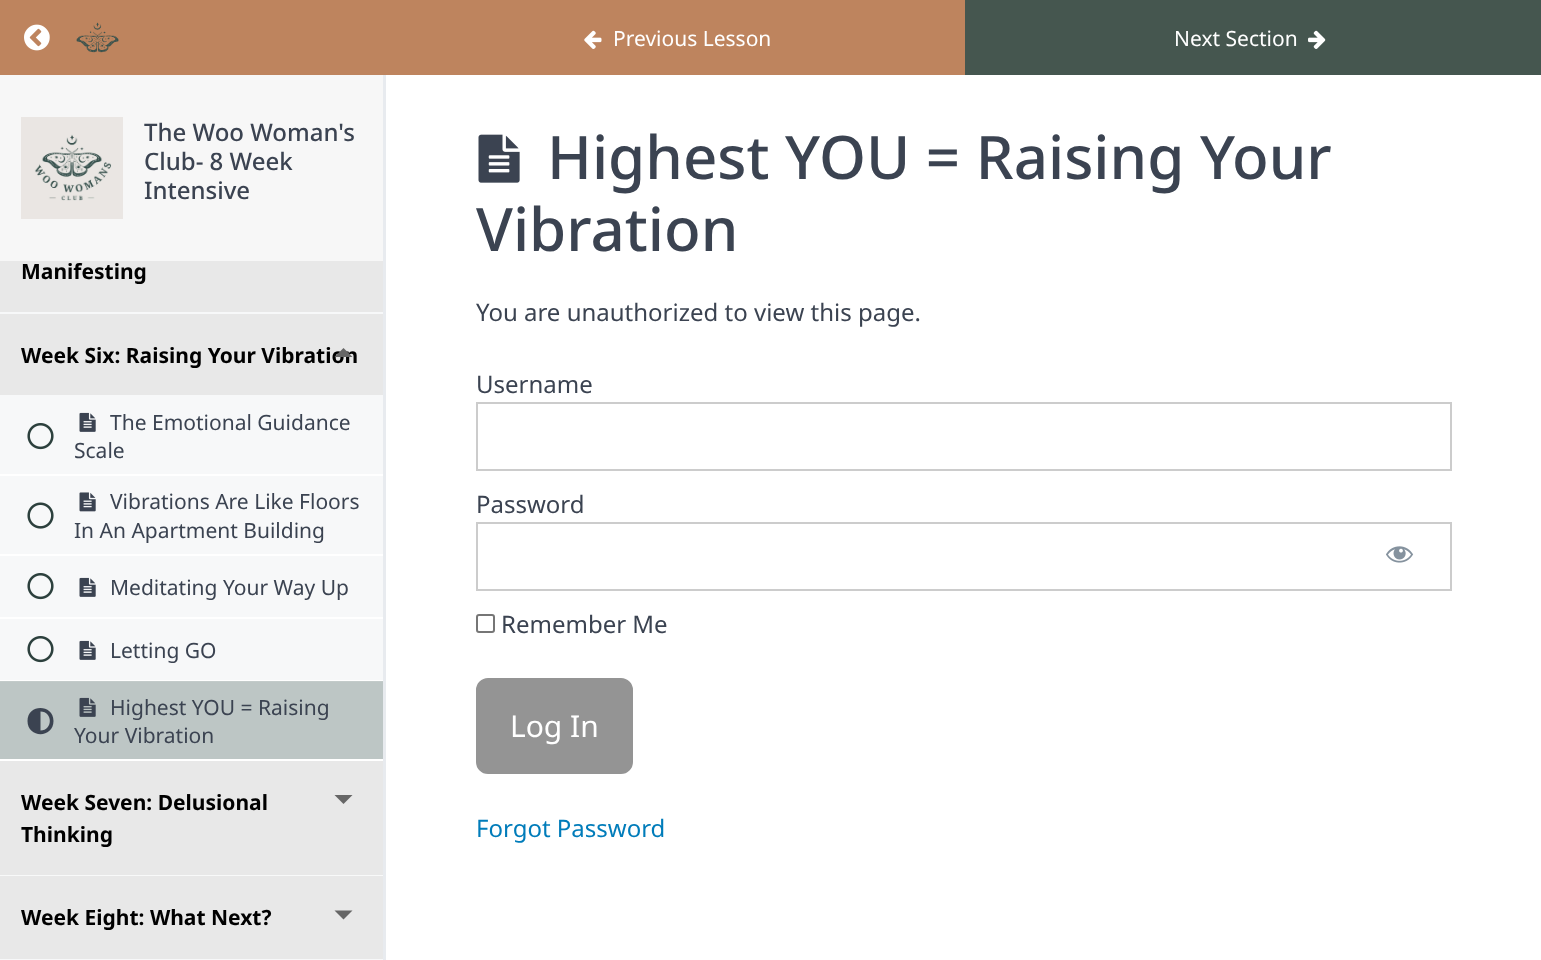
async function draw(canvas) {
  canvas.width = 1541
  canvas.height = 960
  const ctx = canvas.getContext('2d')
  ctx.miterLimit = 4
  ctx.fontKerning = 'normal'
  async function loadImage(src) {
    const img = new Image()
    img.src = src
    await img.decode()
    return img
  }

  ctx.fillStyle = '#fff'
  ctx.fillRect(0, 0, 1541, 960)
  ctx.fillStyle = '#be845e'
  ctx.fillRect(0, 0, 965, 75)
  ctx.drawImage(await loadImage('image0.png'), 24, 24, 26, 27)
  ctx.drawImage(await loadImage('image1.png'), 76, 22, 43, 31)
  ctx.drawImage(await loadImage('image2.png'), 584, 30, 18, 19)
  ctx.font = '21px Noto Sans'
  ctx.fillStyle = '#fff'
  ctx.fillText('Previous Lesson', 613, 46)
  ctx.fillStyle = '#45564f'
  ctx.fillRect(965, 0, 576, 75)
  ctx.fillStyle = '#fff'
  ctx.fillText('Next Section', 1174, 46)
  ctx.drawImage(await loadImage('image3.png'), 1308, 30, 18, 19)
  ctx.fillStyle = '#f7f7f7'
  ctx.fillRect(0, 75, 383, 186)
  ctx.fillStyle = '#e8ebef'
  ctx.fillRect(383, 75, 3, 885)
  ctx.drawImage(await loadImage('image4.png'), 21, 117, 102, 102)
  ctx.font = '500 24px Noto Sans'
  ctx.fillStyle = '#3b4351'
  ctx.fillText('The Woo Woman\'s', 144, 141)
  ctx.fillText('Club- 8 Week', 144, 170)
  ctx.fillText('Intensive', 144, 199)
  ctx.fillStyle = '#f7f8f9'
  ctx.fillRect(0, 312, 383, 2)
  ctx.fillStyle = '#e8e8e8'
  ctx.fillRect(0, 261, 383, 51)
  ctx.font = 'bold 21px Noto Sans'
  ctx.fillStyle = '#000'
  ctx.fillText('Manifesting', 21, 279)
  ctx.fillStyle = '#f7f8f9'
  ctx.fillRect(0, 395, 383, 285)
  ctx.fillStyle = '#bdc6c5'
  ctx.fillRect(0, 682, 383, 77)
  ctx.fillStyle = '#e8e8e8'
  ctx.fillRect(0, 314, 383, 81)
  ctx.fillStyle = '#000'
  ctx.fillText('Week Six: Raising Your Vibration', 21, 363)
  ctx.fillStyle = '#666'
  ctx.beginPath()
  ctx.moveTo(352.5, 357)
  ctx.lineTo(334.5, 357)
  ctx.lineTo(343.5, 348)
  ctx.closePath()
  ctx.fill()
  ctx.fillStyle = '#fff'
  ctx.fillRect(0, 474, 383, 2)
  ctx.drawImage(await loadImage('image5.png'), 27, 423, 27, 27)
  ctx.drawImage(await loadImage('image6.png'), 79, 412, 17, 20)
  ctx.font = '21px Noto Sans'
  ctx.fillStyle = '#3b4351'
  ctx.fillText('The Emotional Guidance', 110, 430)
  ctx.fillText('Scale', 74, 458)
  ctx.fillStyle = '#fff'
  ctx.fillRect(0, 554, 383, 2)
  ctx.drawImage(await loadImage('image7.png'), 27, 502, 27, 27)
  ctx.drawImage(await loadImage('image8.png'), 79, 492, 17, 20)
  ctx.fillStyle = '#3b4351'
  ctx.fillText('Vibrations Are Like Floors', 110, 509)
  ctx.fillText('In An Apartment Building', 74, 538)
  ctx.fillStyle = '#fff'
  ctx.fillRect(0, 617, 383, 2)
  ctx.drawImage(await loadImage('image5.png'), 27, 573, 27, 27)
  ctx.drawImage(await loadImage('image6.png'), 79, 577, 17, 20)
  ctx.fillStyle = '#3b4351'
  ctx.fillText('Meditating Your Way Up', 110, 595)
  ctx.fillStyle = '#c3cbca'
  ctx.fillRect(0, 681, 383, 1)
  ctx.drawImage(await loadImage('image5.png'), 27, 636, 27, 27)
  ctx.drawImage(await loadImage('image6.png'), 79, 640, 17, 20)
  ctx.fillStyle = '#3b4351'
  ctx.fillText('Letting GO', 110, 658)
  ctx.beginPath()
  ctx.moveTo(27.5, 721)
  ctx.bezierCurveTo(27.5, 738.5, 53.5, 738.5, 53.5, 721)
  ctx.bezierCurveTo(53.5, 704, 27.5, 703.5, 27.5, 721)
  ctx.closePath()
  ctx.moveTo(40.5, 730.5)
  ctx.lineTo(40.5, 711.5)
  ctx.bezierCurveTo(53, 711.5, 53, 730.5, 40.5, 730.5)
  ctx.closePath()
  ctx.fill()
  ctx.drawImage(await loadImage('image9.png'), 79, 697, 17, 20)
  ctx.fillText('Highest YOU = Raising', 110, 715)
  ctx.fillText('Your Vibration', 74, 743)
  ctx.fillStyle = '#f8f9f9'
  ctx.fillRect(0, 875, 383, 1)
  ctx.fillStyle = '#e8e8e8'
  ctx.fillRect(0, 761, 383, 114)
  ctx.font = 'bold 21px Noto Sans'
  ctx.fillStyle = '#000'
  ctx.fillText('Week Seven: Delusional', 21, 810)
  ctx.fillText('Thinking', 21, 842)
  ctx.fillStyle = '#666'
  ctx.beginPath()
  ctx.moveTo(334.5, 795)
  ctx.lineTo(352.5, 795)
  ctx.lineTo(343.5, 804)
  ctx.closePath()
  ctx.fill()
  ctx.fillStyle = '#f7f8f9'
  ctx.fillRect(0, 959, 383, 1)
  ctx.fillStyle = '#e8e8e8'
  ctx.fillRect(0, 876, 383, 83)
  ctx.fillStyle = '#000'
  ctx.fillText('Week Eight: What Next?', 21, 925)
  ctx.fillStyle = '#666'
  ctx.beginPath()
  ctx.moveTo(334.5, 910.5)
  ctx.lineTo(352.5, 910.5)
  ctx.lineTo(343.5, 919.5)
  ctx.closePath()
  ctx.fill()
  ctx.drawImage(await loadImage('image10.png'), 478, 134, 42, 49)
  ctx.font = '500 60px Noto Sans'
  ctx.fillStyle = '#3b4351'
  ctx.fillText('Highest YOU = Raising Your', 547, 179)
  ctx.fillText('Vibration', 476, 251)
  ctx.font = '24px Noto Sans'
  ctx.fillText('You are unauthorized to view this page.', 476, 321)
  ctx.fillText('Username', 476, 393)
  ctx.strokeStyle = '#ccc'
  ctx.lineWidth = 2
  ctx.strokeRect(477, 403, 974, 67)
  ctx.fillText('Password', 476, 513)
  ctx.strokeRect(477, 523, 974, 67)
  ctx.drawImage(await loadImage('image11.png'), 1386, 546, 28, 17)
  ctx.beginPath()
  ctx.roundRect(477, 615, 17, 17, 2)
  ctx.strokeStyle = '#767676'
  ctx.stroke()
  ctx.fillText('Remember Me', 501, 633)
  ctx.fillStyle = '#949494'
  ctx.beginPath()
  ctx.roundRect(477, 679, 155, 94, 11)
  ctx.fill()
  ctx.strokeStyle = '#949494'
  ctx.stroke()
  ctx.font = '30px Noto Sans'
  ctx.fillStyle = '#fff'
  ctx.fillText('Log In', 510, 737)
  ctx.font = '24px Noto Sans'
  ctx.fillStyle = '#007cba'
  ctx.fillText('Forgot Password', 476, 837)
}

draw(document.querySelector('canvas'))
